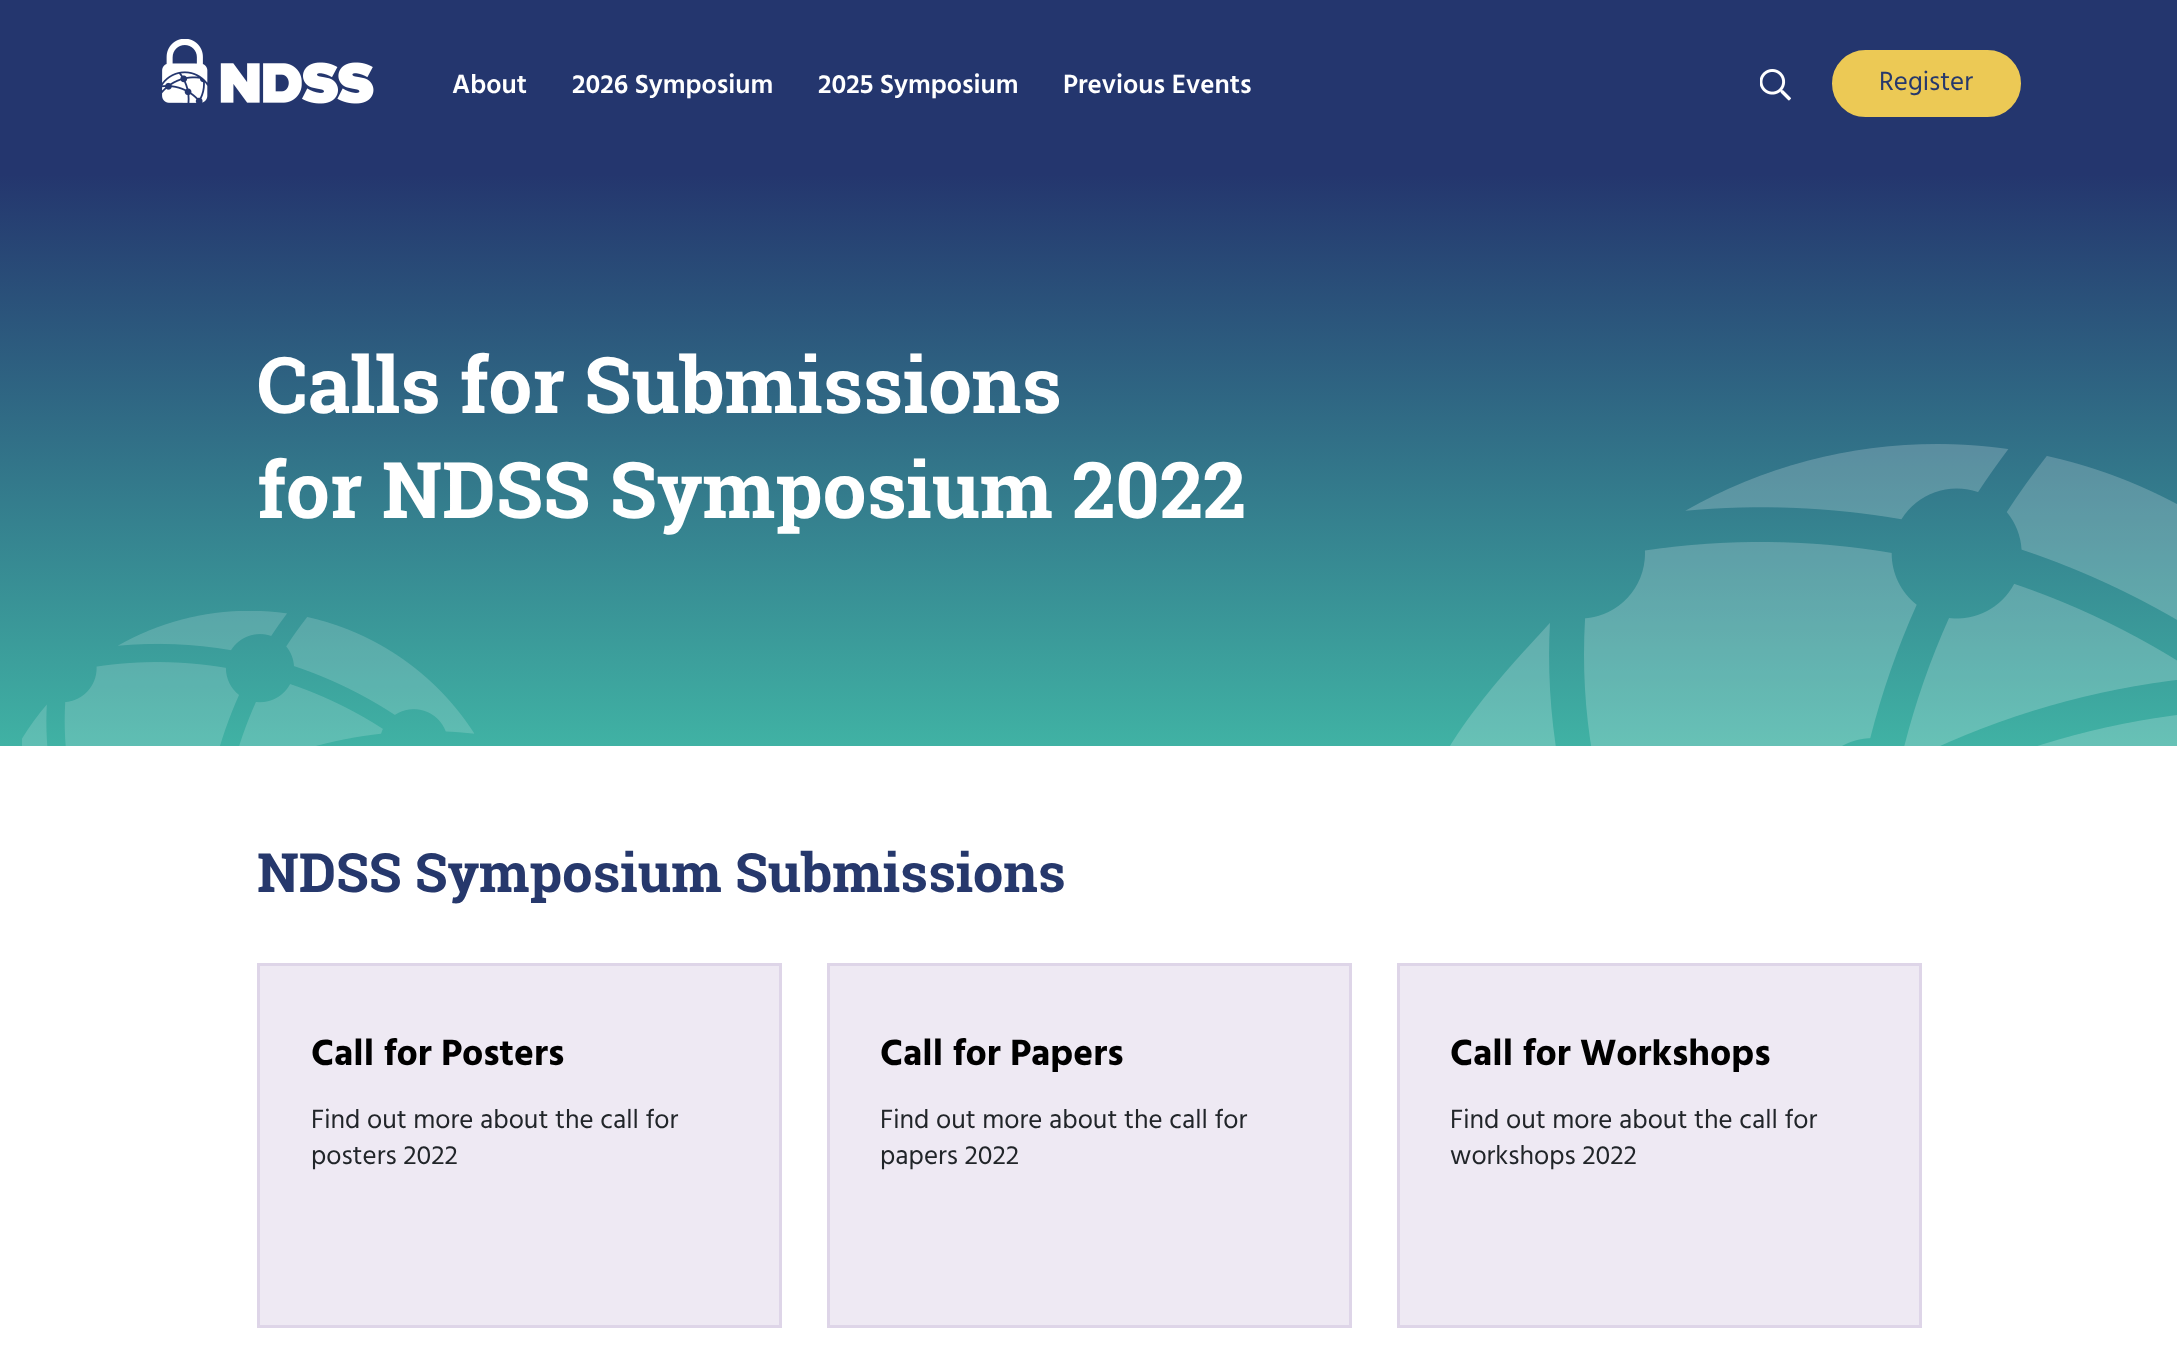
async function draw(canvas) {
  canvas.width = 2177
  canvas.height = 1356
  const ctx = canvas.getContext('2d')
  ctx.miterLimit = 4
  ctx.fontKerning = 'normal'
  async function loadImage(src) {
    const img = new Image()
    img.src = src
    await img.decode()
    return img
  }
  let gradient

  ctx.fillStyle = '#fff'
  ctx.fillRect(0, 0, 2177, 1356)
  ctx.fillStyle = '#24366e'
  ctx.fillRect(0, 0, 2177, 174)
  ctx.drawImage(await loadImage('image0.png'), 162, 39, 212, 65)
  ctx.font = '600 27px Hind'
  ctx.fillStyle = '#fff'
  ctx.fillText('About', 452, 93)
  ctx.fillText('2026 Symposium', 572, 93)
  ctx.fillText('2025 Symposium', 818, 93)
  ctx.fillText('Previous Events', 1063, 93)
  ctx.drawImage(await loadImage('image1.png'), 1760, 69, 31, 32)
  ctx.fillStyle = '#ecc955'
  ctx.beginPath()
  ctx.roundRect(1833, 51, 187, 65, 32.5)
  ctx.fill()
  ctx.strokeStyle = '#ecc955'
  ctx.lineWidth = 2
  ctx.stroke()
  ctx.font = '27px Hind'
  ctx.fillStyle = '#26386c'
  ctx.fillText('Register', 1879, 90)
  gradient = ctx.createLinearGradient(1089, 174, 1089, 746)
  gradient.addColorStop(0, '#24366e')
  gradient.addColorStop(1, '#40b2a4')
  ctx.fillStyle = gradient
  ctx.fillRect(0, 174, 2177, 572)
  ctx.drawImage(await loadImage('image2.png'), 22, 611, 452, 135)
  ctx.font = 'bold 78px Roboto Slab'
  ctx.fillStyle = '#fff'
  ctx.fillText('Calls for Submissions', 257, 413)
  ctx.fillText('for NDSS Symposium 2022', 257, 518)
  ctx.drawImage(await loadImage('image3.png'), 1450, 444, 727, 302)
  ctx.font = 'bold 54px Roboto Slab'
  ctx.fillStyle = '#26386c'
  ctx.fillText('NDSS Symposium Submissions', 257, 892)
  ctx.fillStyle = '#eee9f3'
  ctx.beginPath()
  ctx.rect(258.5, 964.5, 522, 362)
  ctx.fill()
  ctx.strokeStyle = '#ded5e8'
  ctx.lineWidth = 3
  ctx.stroke()
  ctx.font = 'bold 37.5px Hind'
  ctx.fillStyle = '#000'
  ctx.fillText('Call for Posters', 311, 1065)
  ctx.font = '27px Hind'
  ctx.fillStyle = '#212529'
  ctx.fillText('Find out more about the call for', 311, 1128)
  ctx.fillText('posters 2022', 311, 1164)
  ctx.fillStyle = '#eee9f3'
  ctx.beginPath()
  ctx.rect(828.5, 964.5, 522, 362)
  ctx.fill()
  ctx.stroke()
  ctx.font = 'bold 37.5px Hind'
  ctx.fillStyle = '#000'
  ctx.fillText('Call for Papers', 880, 1065)
  ctx.font = '27px Hind'
  ctx.fillStyle = '#212529'
  ctx.fillText('Find out more about the call for', 880, 1128)
  ctx.fillText('papers 2022', 880, 1164)
  ctx.fillStyle = '#eee9f3'
  ctx.beginPath()
  ctx.rect(1398.5, 964.5, 522, 362)
  ctx.fill()
  ctx.stroke()
  ctx.font = 'bold 37.5px Hind'
  ctx.fillStyle = '#000'
  ctx.fillText('Call for Workshops', 1450, 1065)
  ctx.font = '27px Hind'
  ctx.fillStyle = '#212529'
  ctx.fillText('Find out more about the call for', 1450, 1128)
  ctx.fillText('workshops 2022', 1450, 1164)
}

draw(document.querySelector('canvas'))
